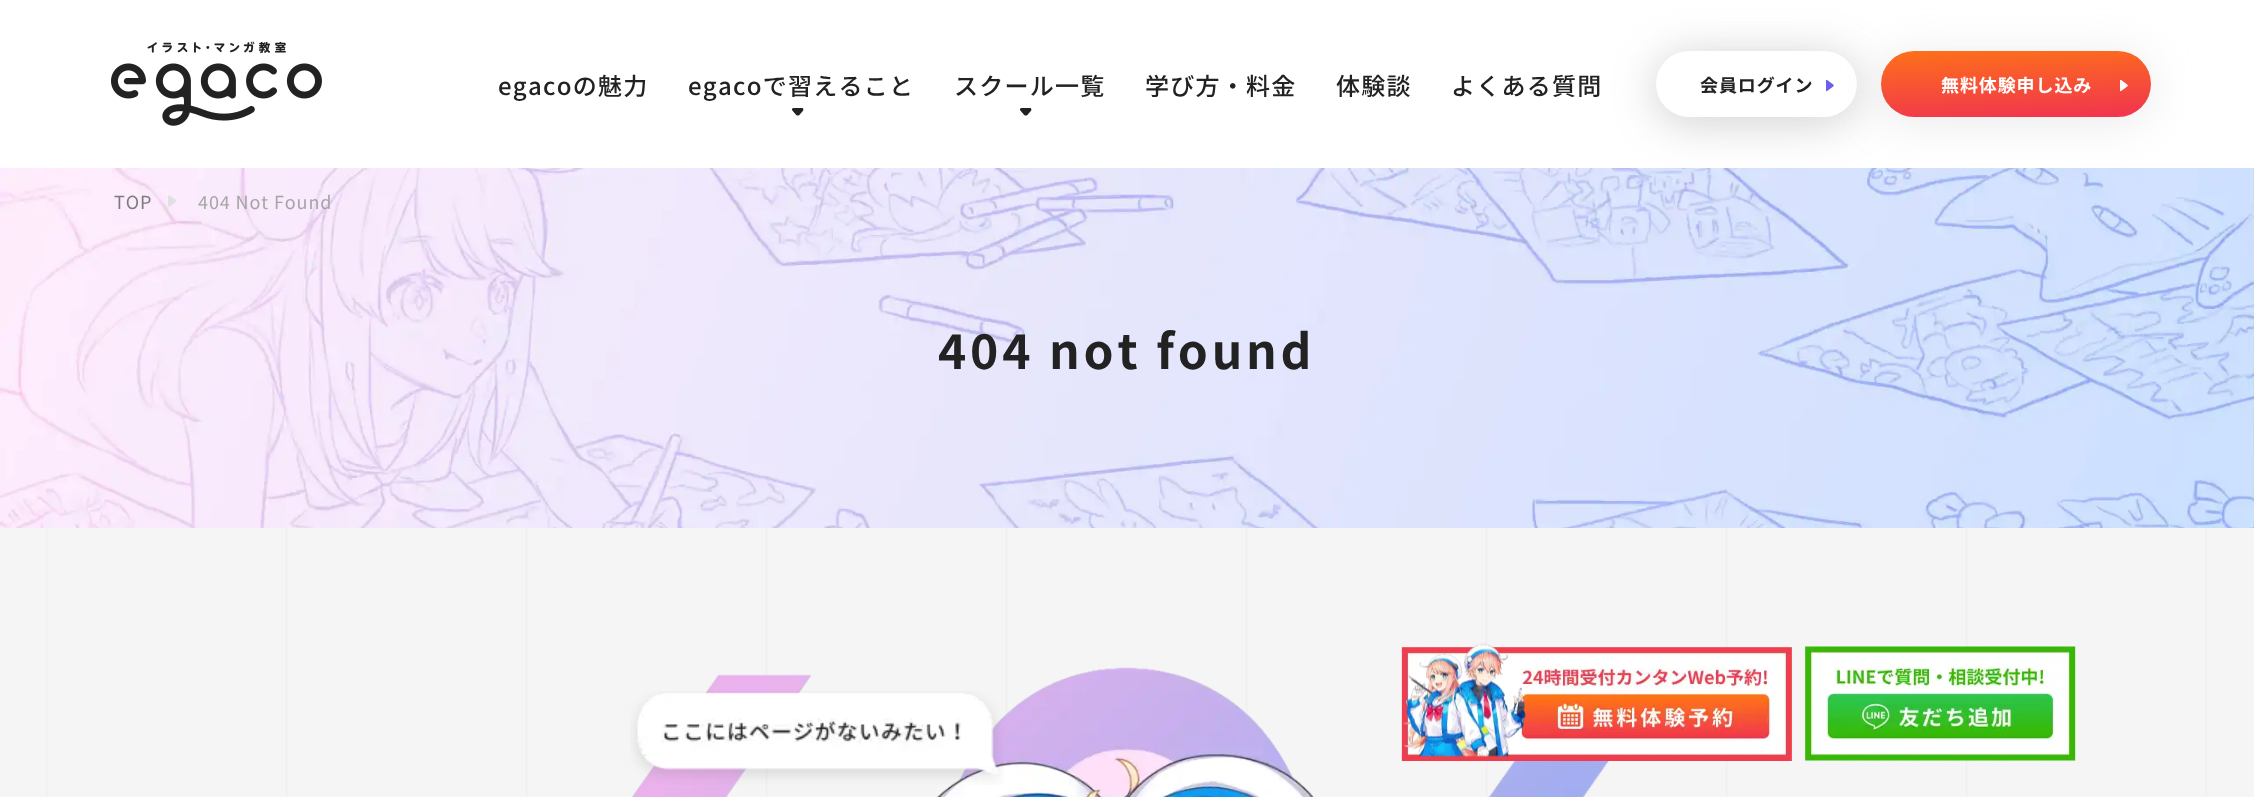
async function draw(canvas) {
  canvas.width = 2254
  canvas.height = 797
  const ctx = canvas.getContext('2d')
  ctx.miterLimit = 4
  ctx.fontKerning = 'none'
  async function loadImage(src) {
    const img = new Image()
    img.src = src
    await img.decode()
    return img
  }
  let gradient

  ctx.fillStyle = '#f5f5f5'
  ctx.fillRect(0, 0, 2254, 797)
  ctx.drawImage(await loadImage('image0.png'), 46, 528, 2161, 269)
  ctx.fillStyle = '#fff'
  ctx.fillRect(0, 0, 2254, 168)
  ctx.drawImage(await loadImage('image1.png'), 111, 41, 211, 85)
  ctx.letterSpacing = '1.25px'
  ctx.font = '500 24px Noto Sans JP'
  ctx.fillStyle = '#222'
  ctx.fillText('egacoの魅力', 498, 95)
  ctx.fillText('egacoで習えること', 688, 95)
  ctx.drawImage(await loadImage('image2.png'), 792, 108, 12, 8)
  ctx.fillText('スクール一覧', 954, 95)
  ctx.drawImage(await loadImage('image3.png'), 1020, 108, 12, 8)
  ctx.fillText('学び方・料金', 1145, 95)
  ctx.fillText('体験談', 1336, 95)
  ctx.fillText('よくある質問', 1451, 95)
  ctx.drawImage(await loadImage('image7.png'), 0, 168, 2254, 360)
  ctx.fillStyle = '#b5b5b54d'
  ctx.filter = 'blur(22.5px)'
  ctx.beginPath()
  ctx.roundRect(1656, 56, 201, 66, 33)
  ctx.fill()
  ctx.filter = 'none'
  ctx.fillStyle = '#79797933'
  ctx.filter = 'blur(22.5px)'
  ctx.beginPath()
  ctx.roundRect(1656, 56, 201, 66, 33)
  ctx.fill()
  ctx.filter = 'none'
  ctx.fillStyle = '#fff'
  ctx.beginPath()
  ctx.roundRect(1656, 51, 201, 66, 33)
  ctx.fill()
  ctx.letterSpacing = '0.9px'
  ctx.font = 'bold 18px Noto Sans JP'
  ctx.fillStyle = '#222'
  ctx.fillText('会員ログイン', 1700, 92)
  ctx.fillStyle = '#b5b5b54d'
  ctx.filter = 'blur(22.5px)'
  ctx.beginPath()
  ctx.roundRect(1881, 56, 270, 66, 33)
  ctx.fill()
  ctx.filter = 'none'
  ctx.drawImage(await loadImage('image4.png'), 1826, 79, 8, 13)
  gradient = ctx.createLinearGradient(1879, 41, 1883, 127)
  gradient.addColorStop(0.02, '#ff7714')
  gradient.addColorStop(0.98, '#f1364d')
  ctx.fillStyle = gradient
  ctx.beginPath()
  ctx.roundRect(1881, 51, 270, 66, 33)
  ctx.fill()
  ctx.fillStyle = '#fff'
  ctx.fillText('無料体験申し込み', 1941, 92)
  ctx.drawImage(await loadImage('image5.png'), 2120, 79, 8, 13)
  ctx.font = '18px Noto Sans JP'
  ctx.fillStyle = '#7c7c7c'
  ctx.fillText('TOP', 114, 209)
  ctx.drawImage(await loadImage('image6.png'), 168, 195, 8, 12)
  ctx.fillStyle = '#a5a5a5'
  ctx.fillText('404 Not Found', 198, 209)
  ctx.letterSpacing = '3.8px'
  ctx.font = 'bold 48px Noto Sans JP'
  ctx.fillStyle = '#222'
  ctx.fillText('404 not found', 938, 369)
  ctx.drawImage(await loadImage('image8.png'), 631, 667, 978, 130)
  ctx.drawImage(await loadImage('image9.png'), 630, 691, 374, 94)
  ctx.drawImage(await loadImage('image11.png'), 1401, 647, 391, 114)
  ctx.drawImage(await loadImage('image10.png'), 1401, 643, 125, 114)
  ctx.drawImage(await loadImage('image12.png'), 1805, 646, 271, 115)
}

draw(document.querySelector('canvas'))
